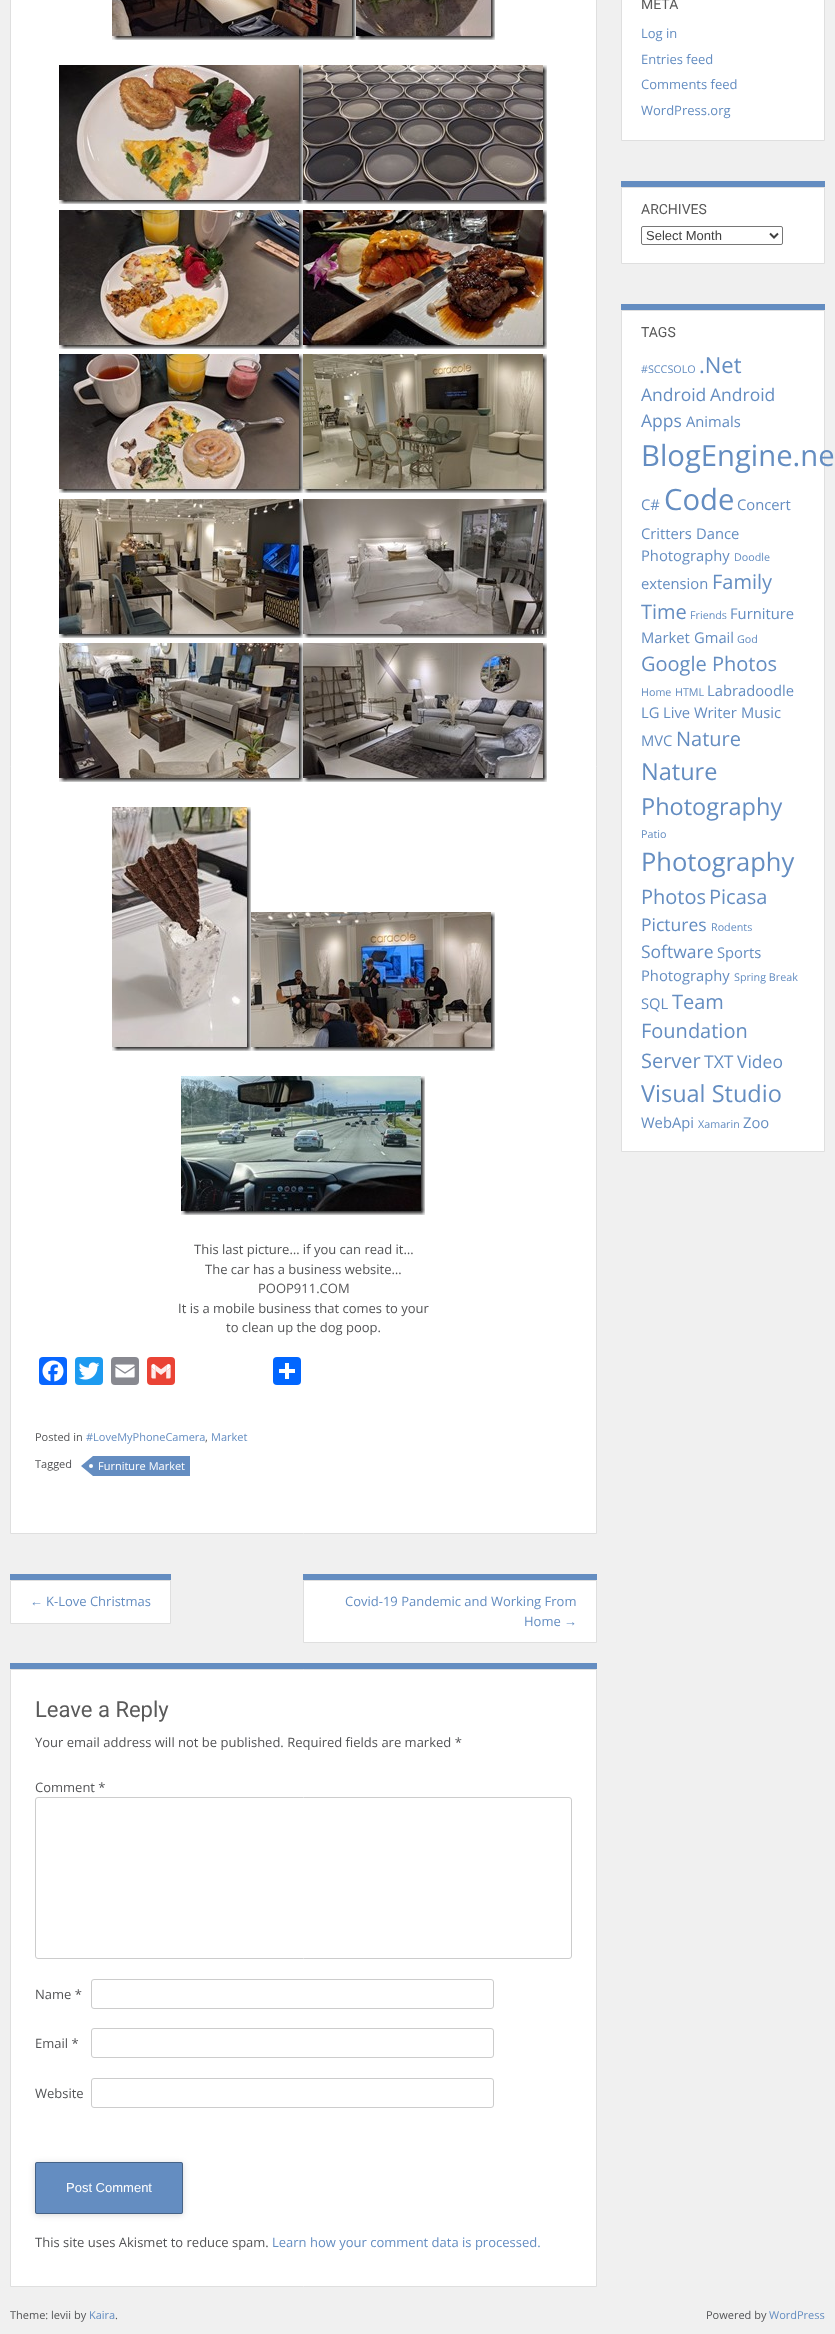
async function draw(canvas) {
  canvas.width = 835
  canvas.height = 2334
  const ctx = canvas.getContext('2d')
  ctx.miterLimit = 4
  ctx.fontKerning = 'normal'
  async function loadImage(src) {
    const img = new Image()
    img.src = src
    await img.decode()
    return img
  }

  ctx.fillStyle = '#f0f0f0'
  ctx.fillRect(0, 0, 835, 2334)
  ctx.fillStyle = '#fff'
  ctx.beginPath()
  ctx.rect(621.5, -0.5, 203, 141)
  ctx.fill()
  ctx.strokeStyle = '#dfdfdf'
  ctx.stroke()
  ctx.font = '14px Roboto'
  ctx.fillStyle = '#5a5a5a'
  ctx.fillText('META', 641, 9)
  ctx.font = '13px Open Sans'
  ctx.fillStyle = '#648dc1'
  ctx.fillText('Log in', 641, 38)
  ctx.fillText('Entries feed', 641, 64)
  ctx.fillText('Comments feed', 641, 89)
  ctx.fillText('WordPress.org', 641, 115)
  ctx.fillStyle = '#fff'
  ctx.beginPath()
  ctx.rect(621.5, 187.5, 203, 76)
  ctx.fill()
  ctx.stroke()
  ctx.fillStyle = '#648dc1'
  ctx.fillRect(621, 181, 204, 6)
  ctx.font = '14px Roboto'
  ctx.fillStyle = '#5a5a5a'
  ctx.fillText('ARCHIVES', 641, 214)
  ctx.beginPath()
  ctx.roundRect(641.5, 226.5, 141, 18, 1.5)
  ctx.strokeStyle = '#767676'
  ctx.stroke()
  ctx.beginPath()
  ctx.moveTo(770, 233.5)
  ctx.lineTo(774, 237.5)
  ctx.lineTo(778, 233.5)
  ctx.strokeStyle = '#404040'
  ctx.lineWidth = 2
  ctx.stroke()
  ctx.font = '13px Liberation Sans'
  ctx.fillStyle = '#404040'
  ctx.fillText('Select Month', 646, 240)
  ctx.fillStyle = '#fff'
  ctx.beginPath()
  ctx.rect(621.5, 310.5, 203, 841)
  ctx.fill()
  ctx.strokeStyle = '#dfdfdf'
  ctx.lineWidth = 1
  ctx.stroke()
  ctx.fillStyle = '#648dc1'
  ctx.fillRect(621, 304, 204, 6)
  ctx.font = '14px Roboto'
  ctx.fillStyle = '#5a5a5a'
  ctx.fillText('TAGS', 641, 337)
  ctx.font = '10.75px Open Sans'
  ctx.fillStyle = '#648dc1'
  ctx.fillText('#SCCSOLO', 641, 373)
  ctx.font = '22px Open Sans'
  ctx.fillText('.Net', 699, 373)
  ctx.font = '17.5px Open Sans'
  ctx.fillText('Android', 641, 401)
  ctx.fillText('Android', 710, 401)
  ctx.fillText('Apps', 641, 427)
  ctx.font = '14.75px Open Sans'
  ctx.fillText('Animals', 686, 427)
  ctx.font = '29.25px Open Sans'
  ctx.fillText('BlogEngine.ne', 641, 466)
  ctx.font = '14.75px Open Sans'
  ctx.fillText('C#', 641, 510)
  ctx.font = '29.25px Open Sans'
  ctx.fillText('Code', 664, 510)
  ctx.font = '14.75px Open Sans'
  ctx.fillText('Concert', 737, 510)
  ctx.fillText('Critters', 641, 539)
  ctx.fillText('Dance', 696, 539)
  ctx.fillText('Photography', 641, 561)
  ctx.font = '10.75px Open Sans'
  ctx.fillText('Doodle', 734, 561)
  ctx.font = '14.75px Open Sans'
  ctx.fillText('extension', 641, 589)
  ctx.font = '20px Open Sans'
  ctx.fillText('Family', 712, 589)
  ctx.fillText('Time', 641, 619)
  ctx.font = '10.75px Open Sans'
  ctx.fillText('Friends', 690, 619)
  ctx.font = '14.75px Open Sans'
  ctx.fillText('Furniture', 730, 619)
  ctx.fillText('Market', 641, 643)
  ctx.fillText('Gmail', 694, 643)
  ctx.font = '10.75px Open Sans'
  ctx.fillText('God', 737, 643)
  ctx.font = '20px Open Sans'
  ctx.fillText('Google Photos', 641, 671)
  ctx.font = '10.75px Open Sans'
  ctx.fillText('Home', 641, 696)
  ctx.fillText('HTML', 675, 696)
  ctx.font = '14.75px Open Sans'
  ctx.fillText('Labradoodle', 707, 696)
  ctx.fillText('LG', 641, 718)
  ctx.fillText('Live Writer', 663, 718)
  ctx.fillText('Music', 741, 718)
  ctx.fillText('MVC', 641, 746)
  ctx.font = '20px Open Sans'
  ctx.fillText('Nature', 676, 746)
  ctx.font = '23.5px Open Sans'
  ctx.fillText('Nature', 641, 780)
  ctx.fillText('Photography', 641, 815)
  ctx.font = '10.75px Open Sans'
  ctx.fillText('Patio', 641, 838)
  ctx.font = '25.5px Open Sans'
  ctx.fillText('Photography', 641, 871)
  ctx.font = '20px Open Sans'
  ctx.fillText('Photos', 641, 904)
  ctx.fillText('Picasa', 709, 904)
  ctx.font = '17.5px Open Sans'
  ctx.fillText('Pictures', 641, 931)
  ctx.font = '10.75px Open Sans'
  ctx.fillText('Rodents', 711, 931)
  ctx.font = '17.5px Open Sans'
  ctx.fillText('Software', 641, 958)
  ctx.font = '14.75px Open Sans'
  ctx.fillText('Sports', 717, 958)
  ctx.fillText('Photography', 641, 981)
  ctx.font = '10.75px Open Sans'
  ctx.fillText('Spring Break', 734, 981)
  ctx.font = '14.75px Open Sans'
  ctx.fillText('SQL', 641, 1009)
  ctx.font = '20px Open Sans'
  ctx.fillText('Team', 672, 1009)
  ctx.fillText('Foundation', 641, 1038)
  ctx.fillText('Server', 641, 1068)
  ctx.font = '17.5px Open Sans'
  ctx.fillText('TXT', 704, 1068)
  ctx.fillText('Video', 737, 1068)
  ctx.font = '23.5px Open Sans'
  ctx.fillText('Visual Studio', 641, 1102)
  ctx.font = '14.75px Open Sans'
  ctx.fillText('WebApi', 641, 1128)
  ctx.font = '10.75px Open Sans'
  ctx.fillText('Xamarin', 698, 1128)
  ctx.font = '14.75px Open Sans'
  ctx.fillText('Zoo', 743, 1128)
  ctx.fillStyle = '#fff'
  ctx.beginPath()
  ctx.rect(10.5, -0.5, 586, 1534)
  ctx.fill()
  ctx.stroke()
  ctx.drawImage(await loadImage('image0.png'), 112, 0, 244, 40)
  ctx.drawImage(await loadImage('image1.png'), 356, 0, 139, 40)
  ctx.drawImage(await loadImage('image2.png'), 59, 65, 244, 139)
  ctx.drawImage(await loadImage('image3.png'), 303, 65, 244, 139)
  ctx.drawImage(await loadImage('image4.png'), 59, 210, 244, 139)
  ctx.drawImage(await loadImage('image5.png'), 303, 210, 244, 139)
  ctx.drawImage(await loadImage('image6.png'), 59, 354, 244, 139)
  ctx.drawImage(await loadImage('image7.png'), 303, 354, 244, 139)
  ctx.drawImage(await loadImage('image8.png'), 59, 499, 244, 139)
  ctx.drawImage(await loadImage('image9.png'), 303, 499, 244, 139)
  ctx.drawImage(await loadImage('image10.png'), 59, 643, 244, 139)
  ctx.drawImage(await loadImage('image11.png'), 303, 643, 244, 139)
  ctx.drawImage(await loadImage('image12.png'), 112, 807, 139, 244)
  ctx.drawImage(await loadImage('image13.png'), 251, 912, 244, 139)
  ctx.drawImage(await loadImage('image14.png'), 181, 1076, 244, 139)
  ctx.font = '13px Open Sans'
  ctx.fillStyle = '#535456'
  ctx.fillText('This last picture… if you can read it…', 194, 1254)
  ctx.fillText('The car has a business website…', 205, 1274)
  ctx.fillText('POOP911.COM', 258, 1293)
  ctx.fillText('It is a mobile business that comes to your', 178, 1313)
  ctx.fillText('to clean up the dog poop.', 226, 1332)
  ctx.fillStyle = '#0866ff'
  ctx.beginPath()
  ctx.roundRect(39, 1357, 28, 28, 4)
  ctx.fill()
  ctx.drawImage(await loadImage('image15.png'), 42, 1360, 22, 22)
  ctx.fillStyle = '#1d9bf0'
  ctx.beginPath()
  ctx.roundRect(75, 1357, 28, 28, 4)
  ctx.fill()
  ctx.drawImage(await loadImage('image16.png'), 78, 1362, 22, 18)
  ctx.fillStyle = '#888990'
  ctx.beginPath()
  ctx.roundRect(111, 1357, 28, 28, 4)
  ctx.fill()
  ctx.drawImage(await loadImage('image17.png'), 115, 1364, 20, 14)
  ctx.fillStyle = '#ea4335'
  ctx.beginPath()
  ctx.roundRect(147, 1357, 28, 28, 4)
  ctx.fill()
  ctx.drawImage(await loadImage('image18.png'), 151, 1364, 20, 15)
  ctx.fillStyle = '#0166ff'
  ctx.beginPath()
  ctx.roundRect(273, 1357, 28, 28, 4)
  ctx.fill()
  ctx.fillStyle = '#fff'
  ctx.fillRect(285, 1363, 4, 16)
  ctx.fillRect(279, 1369, 16, 4)
  ctx.font = '11px Open Sans'
  ctx.fillStyle = '#535456'
  ctx.fillText('Posted in', 35, 1441)
  ctx.fillStyle = '#648dc1'
  ctx.fillText('#LoveMyPhoneCamera', 86, 1441)
  ctx.fillStyle = '#535456'
  ctx.fillText(',', 205, 1441)
  ctx.fillStyle = '#648dc1'
  ctx.fillText('Market', 211, 1441)
  ctx.fillStyle = '#535456'
  ctx.fillText('Tagged', 35, 1468)
  ctx.fillStyle = '#648dc1'
  ctx.fillRect(93, 1456, 97, 20)
  ctx.beginPath()
  ctx.moveTo(93, 1456)
  ctx.lineTo(93, 1476)
  ctx.lineTo(81, 1466)
  ctx.closePath()
  ctx.fill()
  ctx.fillStyle = '#fff'
  ctx.fillText('Furniture Market', 98, 1470)
  ctx.beginPath()
  ctx.arc(91, 1466, 2, 0, 2 * Math.PI)
  ctx.fill()
  ctx.beginPath()
  ctx.rect(10.5, 1580.5, 160, 43)
  ctx.fill()
  ctx.stroke()
  ctx.fillStyle = '#648dc1'
  ctx.fillRect(10, 1574, 161, 6)
  ctx.font = '13px Liberation Sans'
  ctx.fillText('←', 30, 1606)
  ctx.font = '13px Open Sans'
  ctx.fillText('K-Love Christmas', 46, 1606)
  ctx.fillStyle = '#fff'
  ctx.beginPath()
  ctx.rect(303.5, 1580.5, 293, 62)
  ctx.fill()
  ctx.stroke()
  ctx.fillStyle = '#648dc1'
  ctx.fillRect(303, 1574, 294, 6)
  ctx.fillText('Covid-19 Pandemic and Working From', 345, 1606)
  ctx.fillText('Home', 524, 1626)
  ctx.font = '13px Liberation Sans'
  ctx.fillText('→', 564, 1626)
  ctx.fillStyle = '#fff'
  ctx.beginPath()
  ctx.rect(10.5, 1669.5, 586, 617)
  ctx.fill()
  ctx.stroke()
  ctx.fillStyle = '#648dc1'
  ctx.fillRect(10, 1663, 587, 6)
  ctx.font = '22px Roboto'
  ctx.fillStyle = '#5a5a5a'
  ctx.fillText('Leave a Reply', 35, 1717)
  ctx.font = '13px Open Sans'
  ctx.fillStyle = '#535456'
  ctx.fillText('Your email address will not be published. Required fields are marked *', 35, 1747)
  ctx.fillText('Comment *', 35, 1792)
  ctx.beginPath()
  ctx.roundRect(35.5, 1797.5, 536, 161, 2.5)
  ctx.strokeStyle = '#ccc'
  ctx.stroke()
  ctx.fillText('Name *', 35, 1999)
  ctx.beginPath()
  ctx.roundRect(91.5, 1979.5, 402, 29, 2.5)
  ctx.stroke()
  ctx.fillText('Email *', 35, 2048)
  ctx.beginPath()
  ctx.roundRect(91.5, 2028.5, 402, 29, 2.5)
  ctx.stroke()
  ctx.fillText('Website', 35, 2098)
  ctx.beginPath()
  ctx.roundRect(91.5, 2078.5, 402, 29, 2.5)
  ctx.stroke()
  ctx.fillStyle = '#00000026'
  ctx.filter = 'blur(3px)'
  ctx.beginPath()
  ctx.roundRect(35, 2163, 148, 52, 2)
  ctx.fill()
  ctx.filter = 'none'
  ctx.fillStyle = '#648dc1'
  ctx.beginPath()
  ctx.roundRect(35, 2162, 148, 52, 2)
  ctx.fill()
  ctx.beginPath()
  ctx.roundRect(35.5, 2162.5, 147, 51, 1.5)
  ctx.strokeStyle = '#0000004d'
  ctx.stroke()
  ctx.font = '13px Liberation Sans'
  ctx.fillStyle = '#fff'
  ctx.fillText('Post Comment', 66, 2192)
  ctx.font = '13px Open Sans'
  ctx.fillStyle = '#535456'
  ctx.fillText('This site uses Akismet to reduce spam.', 35, 2247)
  ctx.fillStyle = '#648dc1'
  ctx.fillText('Learn how your comment data is processed.', 272, 2247)
  ctx.font = '11px Open Sans'
  ctx.fillStyle = '#535456'
  ctx.fillText('Theme: levii by', 10, 2319)
  ctx.fillStyle = '#648dc1'
  ctx.fillText('Kaira', 89, 2319)
  ctx.fillStyle = '#535456'
  ctx.fillText('.', 115, 2319)
  ctx.fillText('Powered by', 706, 2319)
  ctx.fillStyle = '#648dc1'
  ctx.fillText('WordPress', 769, 2319)
}

draw(document.querySelector('canvas'))
